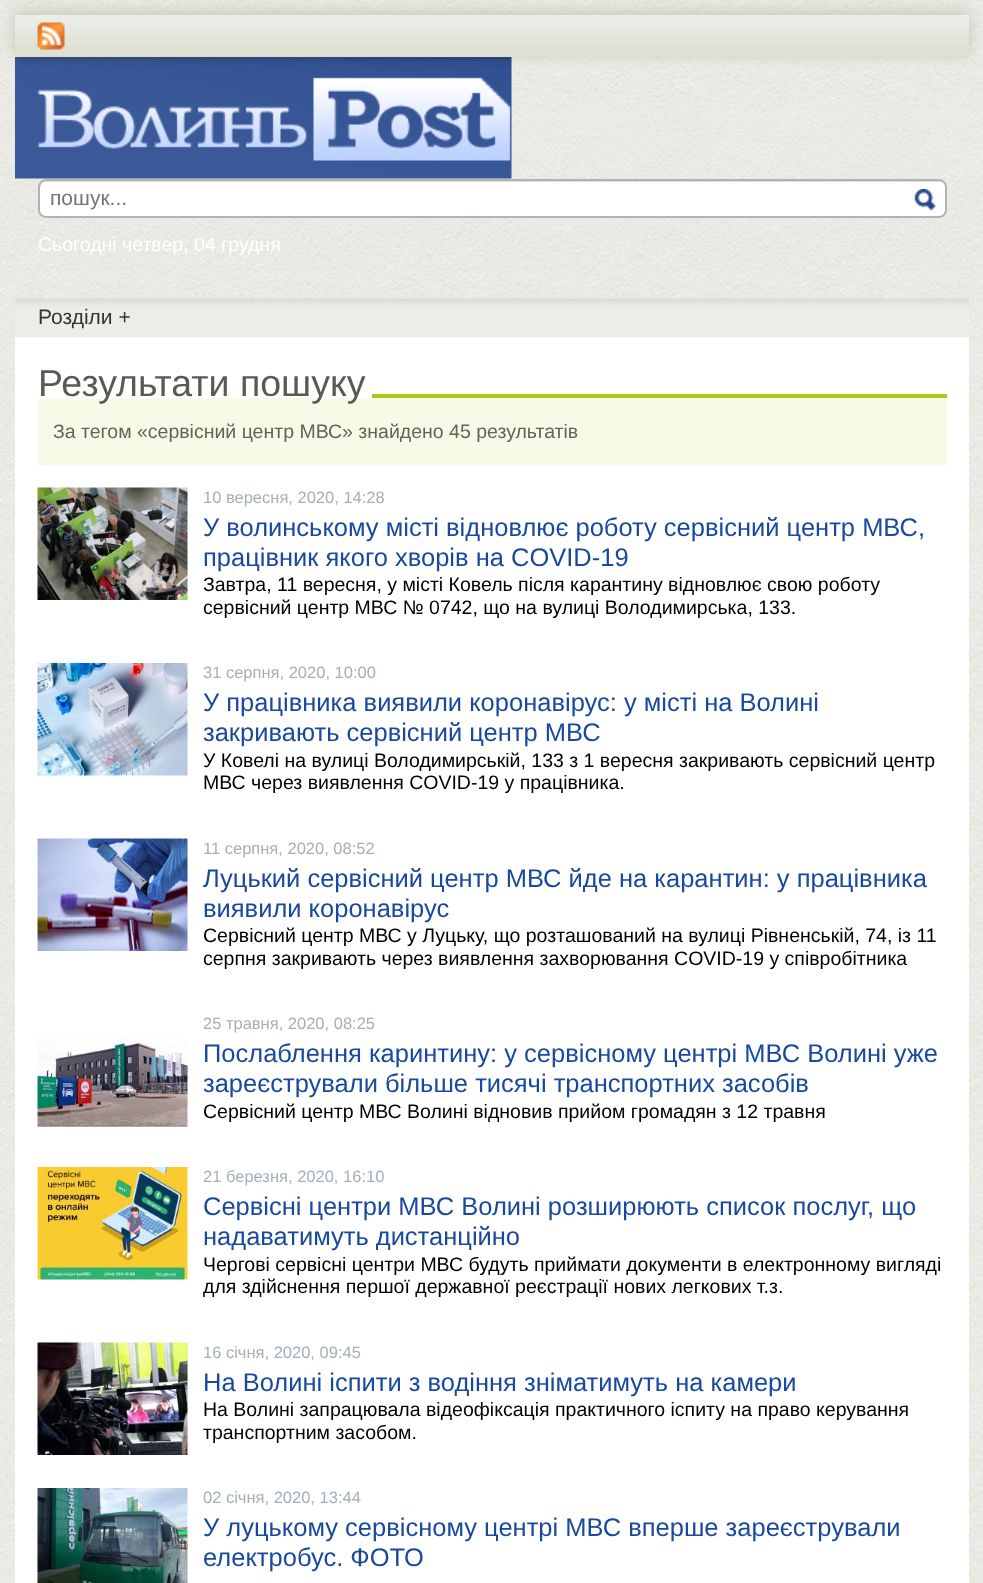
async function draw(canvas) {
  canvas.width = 983
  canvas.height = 1583
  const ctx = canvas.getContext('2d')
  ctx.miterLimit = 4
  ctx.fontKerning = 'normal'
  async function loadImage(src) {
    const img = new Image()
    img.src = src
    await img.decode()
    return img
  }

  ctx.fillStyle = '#fff'
  ctx.fillRect(0, 0, 983, 1583)
  ctx.drawImage(await loadImage('image0.png'), 0, 0, 983, 1583)
  ctx.fillStyle = '#c2c6b5'
  ctx.filter = 'blur(7.5px)'
  ctx.beginPath()
  ctx.rect(15, 12, 954, 42)
  ctx.fill()
  ctx.filter = 'none'
  ctx.drawImage(await loadImage('image1.png'), 15, 15, 954, 42)
  ctx.drawImage(await loadImage('image2.png'), 37, 22, 28, 28)
  ctx.drawImage(await loadImage('image3.png'), 15, 57, 497, 122)
  ctx.fillStyle = '#fff'
  ctx.beginPath()
  ctx.roundRect(38, 179, 909, 39, 8)
  ctx.fill()
  ctx.fillStyle = '#dfdfdf'
  ctx.beginPath()
  ctx.moveTo(46, 182)
  ctx.lineTo(940, 182)
  ctx.bezierCurveTo(942, 182, 943, 182, 944, 183)
  ctx.bezierCurveTo(943, 181, 941, 180, 939, 180)
  ctx.lineTo(45, 180)
  ctx.bezierCurveTo(42, 180, 39, 183, 39, 186)
  ctx.lineTo(39, 210)
  ctx.bezierCurveTo(39, 211, 40, 213, 40, 214)
  ctx.lineTo(40, 192)
  ctx.bezierCurveTo(40, 188, 40, 182, 46, 182)
  ctx.closePath()
  ctx.fill()
  ctx.beginPath()
  ctx.roundRect(39, 180, 907, 37, 7)
  ctx.strokeStyle = '#b3b3b3'
  ctx.lineWidth = 2
  ctx.stroke()
  ctx.font = '21px Liberation Sans'
  ctx.fillStyle = '#757575'
  ctx.fillText('пошук...', 50, 205)
  ctx.drawImage(await loadImage('image4.png'), 914, 189, 22, 22)
  ctx.font = '19.5px Liberation Sans'
  ctx.fillStyle = '#fff'
  ctx.fillText('Сьогодні четвер, 04 грудня', 38, 251)
  ctx.fillRect(15, 337, 954, 1246)
  ctx.drawImage(await loadImage('image5.png'), 15, 298, 954, 40)
  ctx.font = '21px Liberation Sans'
  ctx.fillStyle = '#33362b'
  ctx.fillText('Розділи +', 38, 324)
  ctx.fillStyle = '#a9cc18'
  ctx.fillRect(372, 394, 575, 4)
  ctx.fillStyle = '#f6fae7'
  ctx.fillRect(38, 398, 909, 67)
  ctx.font = '37.5px Liberation Sans'
  ctx.fillStyle = '#585b51'
  ctx.fillText('Результати пошуку', 38, 396)
  ctx.font = '19.5px Liberation Sans'
  ctx.fillStyle = '#62645c'
  ctx.fillText('За тегом «сервісний центр МВС» знайдено 45 результатів', 53, 438)
  ctx.drawImage(await loadImage('image6.png'), 37, 487, 151, 113)
  ctx.font = '16.5px Liberation Sans'
  ctx.fillStyle = '#a3b0b8'
  ctx.fillText('10 вересня, 2020, 14:28', 203, 503)
  ctx.font = '25.5px Liberation Sans'
  ctx.fillStyle = '#18499e'
  ctx.fillText('У волинському місті відновлює роботу сервісний центр МВС,', 203, 536)
  ctx.fillText('працівник якого хворів на COVID-19', 203, 566)
  ctx.font = '19.5px Liberation Sans'
  ctx.fillStyle = '#000'
  ctx.fillText('Завтра, 11 вересня, у місті Ковель після карантину відновлює свою роботу', 203, 591)
  ctx.fillText('сервісний центр МВС № 0742, що на вулиці Володимирська, 133.', 203, 614)
  ctx.drawImage(await loadImage('image7.png'), 37, 663, 151, 113)
  ctx.font = '16.5px Liberation Sans'
  ctx.fillStyle = '#a3b0b8'
  ctx.fillText('31 серпня, 2020, 10:00', 203, 678)
  ctx.font = '25.5px Liberation Sans'
  ctx.fillStyle = '#18499e'
  ctx.fillText('У працівника виявили коронавірус: у місті на Волині', 203, 711)
  ctx.fillText('закривають сервісний центр МВС', 203, 741)
  ctx.font = '19.5px Liberation Sans'
  ctx.fillStyle = '#000'
  ctx.fillText('У Ковелі на вулиці Володимирській, 133 з 1 вересня закривають сервісний центр', 203, 767)
  ctx.fillText('МВС через виявлення COVID-19 у працівника.', 203, 789)
  ctx.drawImage(await loadImage('image8.png'), 37, 838, 151, 113)
  ctx.font = '16.5px Liberation Sans'
  ctx.fillStyle = '#a3b0b8'
  ctx.fillText('11 серпня, 2020, 08:52', 203, 854)
  ctx.font = '25.5px Liberation Sans'
  ctx.fillStyle = '#18499e'
  ctx.fillText('Луцький сервісний центр МВС йде на карантин: у працівника', 203, 887)
  ctx.fillText('виявили коронавірус', 203, 917)
  ctx.font = '19.5px Liberation Sans'
  ctx.fillStyle = '#000'
  ctx.fillText('Сервісний центр МВС у Луцьку, що розташований на вулиці Рівненській, 74, із 11', 203, 942)
  ctx.fillText('серпня закривають через виявлення захворювання COVID-19 у співробітника', 203, 965)
  ctx.drawImage(await loadImage('image9.png'), 37, 1038, 151, 89)
  ctx.font = '16.5px Liberation Sans'
  ctx.fillStyle = '#a3b0b8'
  ctx.fillText('25 травня, 2020, 08:25', 203, 1029)
  ctx.font = '25.5px Liberation Sans'
  ctx.fillStyle = '#18499e'
  ctx.fillText('Послаблення каринтину: у сервісному центрі МВС Волині уже', 203, 1062)
  ctx.fillText('зареєстрували більше тисячі транспортних засобів', 203, 1092)
  ctx.font = '19.5px Liberation Sans'
  ctx.fillStyle = '#000'
  ctx.fillText('Сервісний центр МВС Волині відновив прийом громадян з 12 травня', 203, 1118)
  ctx.drawImage(await loadImage('image10.png'), 37, 1167, 151, 113)
  ctx.font = '16.5px Liberation Sans'
  ctx.fillStyle = '#a3b0b8'
  ctx.fillText('21 березня, 2020, 16:10', 203, 1182)
  ctx.font = '25.5px Liberation Sans'
  ctx.fillStyle = '#18499e'
  ctx.fillText('Сервісні центри МВС Волині розширюють список послуг, що', 203, 1215)
  ctx.fillText('надаватимуть дистанційно', 203, 1245)
  ctx.font = '19.5px Liberation Sans'
  ctx.fillStyle = '#000'
  ctx.fillText('Чергові сервісні центри МВС будуть приймати документи в електронному вигляді', 203, 1271)
  ctx.fillText('для здійснення першої державної реєстрації нових легкових т.з.', 203, 1293)
  ctx.drawImage(await loadImage('image11.png'), 37, 1342, 151, 113)
  ctx.font = '16.5px Liberation Sans'
  ctx.fillStyle = '#a3b0b8'
  ctx.fillText('16 січня, 2020, 09:45', 203, 1358)
  ctx.font = '25.5px Liberation Sans'
  ctx.fillStyle = '#18499e'
  ctx.fillText('На Волині іспити з водіння зніматимуть на камери', 203, 1391)
  ctx.font = '19.5px Liberation Sans'
  ctx.fillStyle = '#000'
  ctx.fillText('На Волині запрацювала відеофіксація практичного іспиту на право керування', 203, 1416)
  ctx.fillText('транспортним засобом.', 203, 1439)
  ctx.drawImage(await loadImage('image12.png'), 37, 1488, 151, 95)
  ctx.font = '16.5px Liberation Sans'
  ctx.fillStyle = '#a3b0b8'
  ctx.fillText('02 січня, 2020, 13:44', 203, 1503)
  ctx.font = '25.5px Liberation Sans'
  ctx.fillStyle = '#18499e'
  ctx.fillText('У луцькому сервісному центрі МВС вперше зареєстрували', 203, 1536)
  ctx.fillText('електробус. ФОТО', 203, 1566)
}

draw(document.querySelector('canvas'))
